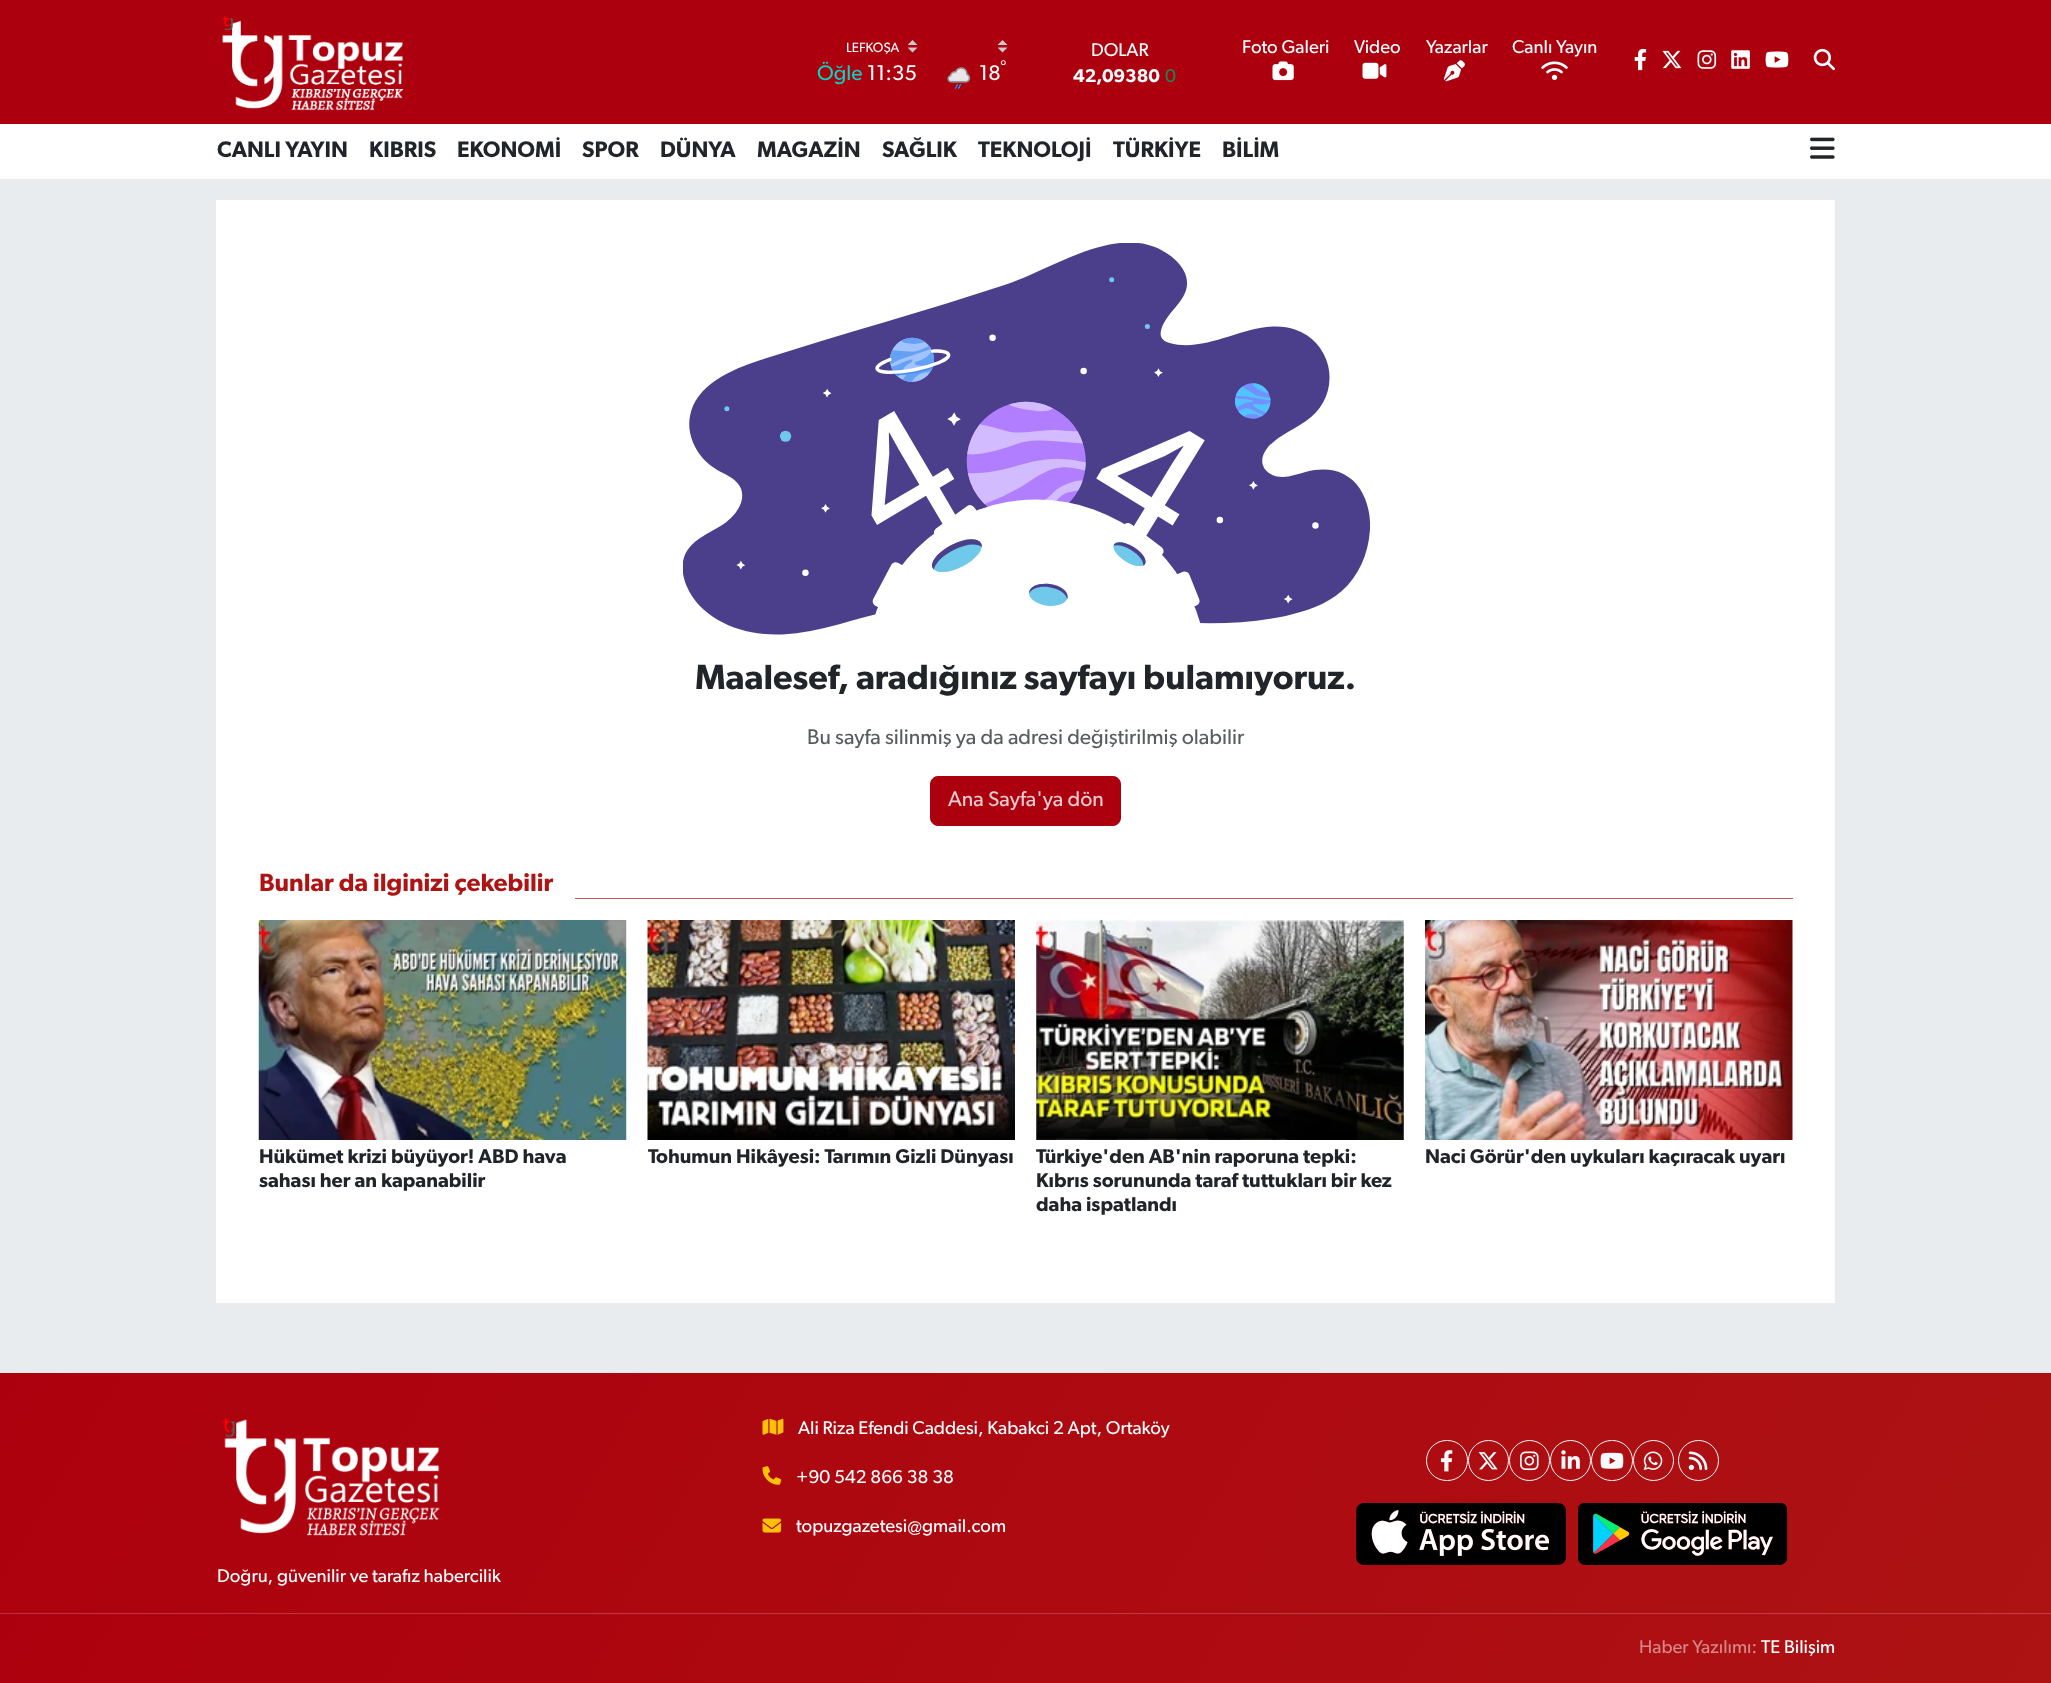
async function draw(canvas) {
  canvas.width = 2051
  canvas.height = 1683
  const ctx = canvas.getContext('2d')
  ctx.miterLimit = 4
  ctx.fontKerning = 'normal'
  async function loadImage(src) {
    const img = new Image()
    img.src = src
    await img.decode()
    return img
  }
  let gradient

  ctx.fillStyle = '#e9ecef'
  ctx.fillRect(0, 0, 2051, 1683)
  ctx.fillStyle = '#ad000e'
  ctx.fillRect(0, 0, 2051, 124)
  ctx.drawImage(await loadImage('image0.png'), 222, 15, 182, 96)
  ctx.drawImage(await loadImage('image1.png'), 908, 40, 10, 13)
  ctx.font = '13.5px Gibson'
  ctx.fillStyle = '#fff'
  ctx.fillText('LEFKOŞA', 846, 52)
  ctx.font = '21.25px Gibson'
  ctx.fillStyle = '#09d2c1'
  ctx.fillText('Öğle', 817, 80)
  ctx.fillStyle = '#fff'
  ctx.fillText('11:35', 867, 80)
  ctx.drawImage(await loadImage('image1.png'), 998, 40, 10, 13)
  ctx.font = '16px Gibson'
  ctx.fillStyle = '#f8f9fa'
  ctx.fillText('°', 1000, 72)
  ctx.drawImage(await loadImage('image2.png'), 947, 67, 24, 22)
  ctx.font = '21.25px Gibson'
  ctx.fillStyle = '#fff'
  ctx.fillText('18', 979, 80)
  ctx.font = '18.6px Gibson'
  ctx.fillText('DOLAR', 1091, 56)
  ctx.font = '600 18.6px Gibson'
  ctx.fillText('42,09380', 1073, 82)
  ctx.font = '18.6px Gibson'
  ctx.fillStyle = '#198754'
  ctx.fillText('0', 1165, 82)
  ctx.fillStyle = '#fff'
  ctx.fillText('Foto Galeri', 1242, 53)
  ctx.drawImage(await loadImage('image3.png'), 1272, 61, 22, 20)
  ctx.fillText('Video', 1354, 53)
  ctx.drawImage(await loadImage('image4.png'), 1362, 62, 25, 17)
  ctx.fillText('Yazarlar', 1426, 53)
  ctx.drawImage(await loadImage('image5.png'), 1443, 60, 22, 22)
  ctx.fillText('Canlı Yayın', 1512, 53)
  ctx.drawImage(await loadImage('image6.png'), 1541, 61, 27, 20)
  ctx.drawImage(await loadImage('image7.png'), 1634, 48, 13, 23)
  ctx.drawImage(await loadImage('image8.png'), 1662, 50, 20, 19)
  ctx.drawImage(await loadImage('image9.png'), 1697, 50, 20, 19)
  ctx.drawImage(await loadImage('image10.png'), 1731, 50, 19, 19)
  ctx.drawImage(await loadImage('image11.png'), 1765, 51, 24, 17)
  ctx.drawImage(await loadImage('image12.png'), 1813, 48, 22, 23)
  ctx.fillRect(0, 124, 2051, 55)
  ctx.font = '600 22.5px Gibson'
  ctx.fillStyle = '#212529'
  ctx.fillText('CANLI YAYIN', 217, 157)
  ctx.fillText('KIBRIS', 369, 157)
  ctx.fillText('EKONOMİ', 457, 157)
  ctx.fillText('SPOR', 582, 157)
  ctx.fillText('DÜNYA', 660, 157)
  ctx.fillText('MAGAZİN', 757, 157)
  ctx.fillText('SAĞLIK', 882, 157)
  ctx.fillText('TEKNOLOJİ', 978, 157)
  ctx.fillText('TÜRKİYE', 1113, 157)
  ctx.fillText('BİLİM', 1222, 157)
  ctx.drawImage(await loadImage('image13.png'), 1810, 137, 25, 22)
  ctx.fillStyle = '#fff'
  ctx.fillRect(216, 200, 1619, 1103)
  ctx.drawImage(await loadImage('image14.png'), 683, 243, 687, 392)
  ctx.font = '600 35px Gibson'
  ctx.fillStyle = '#212529'
  ctx.fillText('Maalesef, aradığınız sayfayı bulamıyoruz.', 695, 689)
  ctx.font = '21.25px Gibson'
  ctx.fillStyle = '#595c5f'
  ctx.fillText('Bu sayfa silinmiş ya da adresi değiştirilmiş olabilir', 807, 744)
  ctx.fillStyle = '#ad000e'
  ctx.beginPath()
  ctx.roundRect(930.5, 776.5, 190, 49, 7.5)
  ctx.fill()
  ctx.strokeStyle = '#ad000e'
  ctx.stroke()
  ctx.fillStyle = '#efcccf'
  ctx.fillText('Ana Sayfa\'ya dön', 948, 806)
  ctx.font = '600 25px Gibson'
  ctx.fillStyle = '#ae1414'
  ctx.fillText('Bunlar da ilginizi çekebilir', 259, 891)
  ctx.fillStyle = '#c65b5b'
  ctx.fillRect(575, 898, 1218, 1)
  ctx.drawImage(await loadImage('image15.png'), 258, 920, 369, 220)
  ctx.font = '600 20px Gibson'
  ctx.fillStyle = '#212529'
  ctx.fillText('Hükümet krizi büyüyor! ABD hava', 259, 1163)
  ctx.fillText('sahası her an kapanabilir', 259, 1187)
  ctx.drawImage(await loadImage('image16.png'), 647, 920, 368, 220)
  ctx.save()
  ctx.beginPath()
  ctx.rect(648, 1146, 367, 24)
  ctx.clip()
  ctx.fillText('Tohumun Hikâyesi: Tarımın Gizli Dünyası', 648, 1163)
  ctx.restore()
  ctx.drawImage(await loadImage('image17.png'), 1036, 920, 368, 220)
  ctx.fillText('Türkiye\'den AB\'nin raporuna tepki:', 1036, 1163)
  ctx.fillText('Kıbrıs sorununda taraf tuttukları bir kez', 1036, 1187)
  ctx.fillText('daha ispatlandı', 1036, 1211)
  ctx.drawImage(await loadImage('image18.png'), 1425, 920, 368, 220)
  ctx.fillText('Naci Görür\'den uykuları kaçıracak uyarı', 1425, 1163)
  gradient = ctx.createLinearGradient(204, 1018, 1847, 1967)
  gradient.addColorStop(0, '#ad000e')
  gradient.addColorStop(1, '#ad1313')
  ctx.fillStyle = gradient
  ctx.fillRect(0, 1373, 2051, 240)
  gradient = ctx.createLinearGradient(204, 1258, 1847, 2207)
  gradient.addColorStop(0, '#bd333e')
  gradient.addColorStop(1, '#bd4242')
  ctx.fillStyle = gradient
  ctx.fillRect(0, 1613, 2051, 1)
  ctx.drawImage(await loadImage('image19.png'), 762, 1418, 22, 17)
  ctx.font = '18.6px Gibson'
  ctx.fillStyle = '#fff'
  ctx.fillText('Ali Riza Efendi Caddesi, Kabakci 2 Apt, Ortaköy', 798, 1434)
  ctx.drawImage(await loadImage('image20.png'), 762, 1466, 20, 19)
  ctx.fillText('+90 542 866 38 38', 796, 1483)
  ctx.drawImage(await loadImage('image21.png'), 762, 1518, 20, 15)
  ctx.fillText('topuzgazetesi@gmail.com', 796, 1532)
  ctx.beginPath()
  ctx.roundRect(1426.5, 1440.5, 41, 40, 20)
  ctx.strokeStyle = '#f8f9fa'
  ctx.stroke()
  ctx.drawImage(await loadImage('image22.png'), 1440, 1450, 13, 22)
  ctx.beginPath()
  ctx.arc(1488.5, 1460.5, 20, 0, 2 * Math.PI)
  ctx.stroke()
  ctx.drawImage(await loadImage('image23.png'), 1478, 1452, 20, 18)
  ctx.beginPath()
  ctx.arc(1529.5, 1460.5, 20, 0, 2 * Math.PI)
  ctx.stroke()
  ctx.drawImage(await loadImage('image24.png'), 1520, 1451, 19, 20)
  ctx.beginPath()
  ctx.arc(1570.5, 1460.5, 20, 0, 2 * Math.PI)
  ctx.stroke()
  ctx.drawImage(await loadImage('image25.png'), 1561, 1450, 19, 19)
  ctx.beginPath()
  ctx.roundRect(1591.5, 1440.5, 41, 40, 20)
  ctx.stroke()
  ctx.drawImage(await loadImage('image26.png'), 1600, 1452, 24, 17)
  ctx.beginPath()
  ctx.arc(1653.5, 1460.5, 20, 0, 2 * Math.PI)
  ctx.stroke()
  ctx.drawImage(await loadImage('image27.png'), 1643, 1451, 20, 19)
  ctx.beginPath()
  ctx.arc(1698.5, 1460.5, 20, 0, 2 * Math.PI)
  ctx.stroke()
  ctx.drawImage(await loadImage('image28.png'), 1688, 1451, 20, 20)
  ctx.drawImage(await loadImage('image29.png'), 1356, 1503, 210, 62)
  ctx.drawImage(await loadImage('image30.png'), 1578, 1503, 210, 62)
  ctx.drawImage(await loadImage('image31.png'), 222, 1417, 218, 119)
  ctx.fillText('Doğru, güvenilir ve tarafız habercilik', 217, 1582)
  gradient = ctx.createLinearGradient(241, 1196, 1810, 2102)
  gradient.addColorStop(0, '#ad000e')
  gradient.addColorStop(1, '#ad1313')
  ctx.fillStyle = gradient
  ctx.fillRect(0, 1614, 2051, 69)
  ctx.fillStyle = '#d68789'
  ctx.fillText('Haber Yazılımı:', 1639, 1653)
  ctx.fillStyle = '#fff'
  ctx.fillText('TE Bilişim', 1761, 1653)
}

draw(document.querySelector('canvas'))
